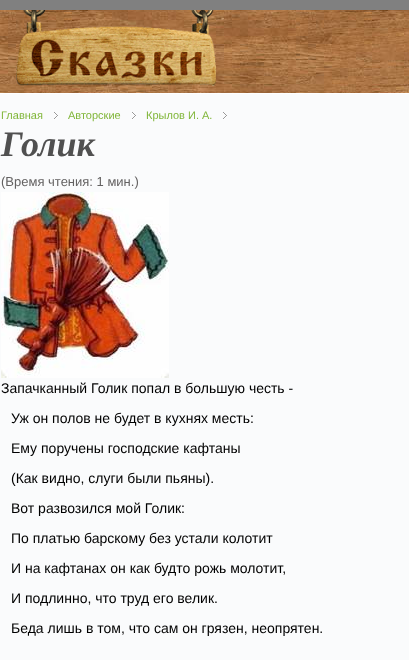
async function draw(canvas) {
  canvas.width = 409
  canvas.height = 660
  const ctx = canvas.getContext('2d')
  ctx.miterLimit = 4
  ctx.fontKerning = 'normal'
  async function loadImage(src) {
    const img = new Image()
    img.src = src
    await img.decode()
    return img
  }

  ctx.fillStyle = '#fff'
  ctx.fillRect(0, 0, 409, 660)
  ctx.drawImage(await loadImage('image0.png'), 0, 10, 409, 83)
  ctx.drawImage(await loadImage('image1.png'), 16, 10, 200, 76)
  ctx.fillStyle = '#fafbfc'
  ctx.fillRect(0, 94, 409, 566)
  ctx.drawImage(await loadImage('image2.png'), 54, 112, 4, 8)
  ctx.font = '11px Liberation Sans'
  ctx.fillStyle = '#80b639'
  ctx.fillText('Главная', 1, 119)
  ctx.drawImage(await loadImage('image2.png'), 132, 112, 4, 8)
  ctx.fillText('Авторские', 68, 119)
  ctx.drawImage(await loadImage('image2.png'), 223, 112, 4, 8)
  ctx.fillText('Крылов И. А.', 146, 119)
  ctx.font = 'italic bold 36px Liberation Serif'
  ctx.fillStyle = '#505050'
  ctx.fillText('Голик', 1, 156)
  ctx.font = '13px Liberation Sans'
  ctx.fillStyle = '#636161'
  ctx.fillText('(Время чтения: 1 мин.)', 1, 186)
  ctx.fillStyle = '#808080'
  ctx.fillRect(0, 0, 409, 10)
  ctx.drawImage(await loadImage('image3.png'), 1, 192, 168, 186)
  ctx.font = '14px Liberation Sans'
  ctx.fillStyle = '#000'
  ctx.fillText('Запачканный Голик попал в большую честь -', 1, 393)
  ctx.fillText('Уж он полов не будет в кухнях месть:', 11, 423)
  ctx.fillText('Ему поручены господские кафтаны', 11, 453)
  ctx.fillText('(Как видно, слуги были пьяны).', 11, 483)
  ctx.fillText('Вот развозился мой Голик:', 11, 513)
  ctx.fillText('По платью барскому без устали колотит', 11, 543)
  ctx.fillText('И на кафтанах он как будто рожь молотит,', 11, 573)
  ctx.fillText('И подлинно, что труд его велик.', 11, 603)
  ctx.fillText('Беда лишь в том, что сам он грязен, неопрятен.', 11, 633)
}

draw(document.querySelector('canvas'))
